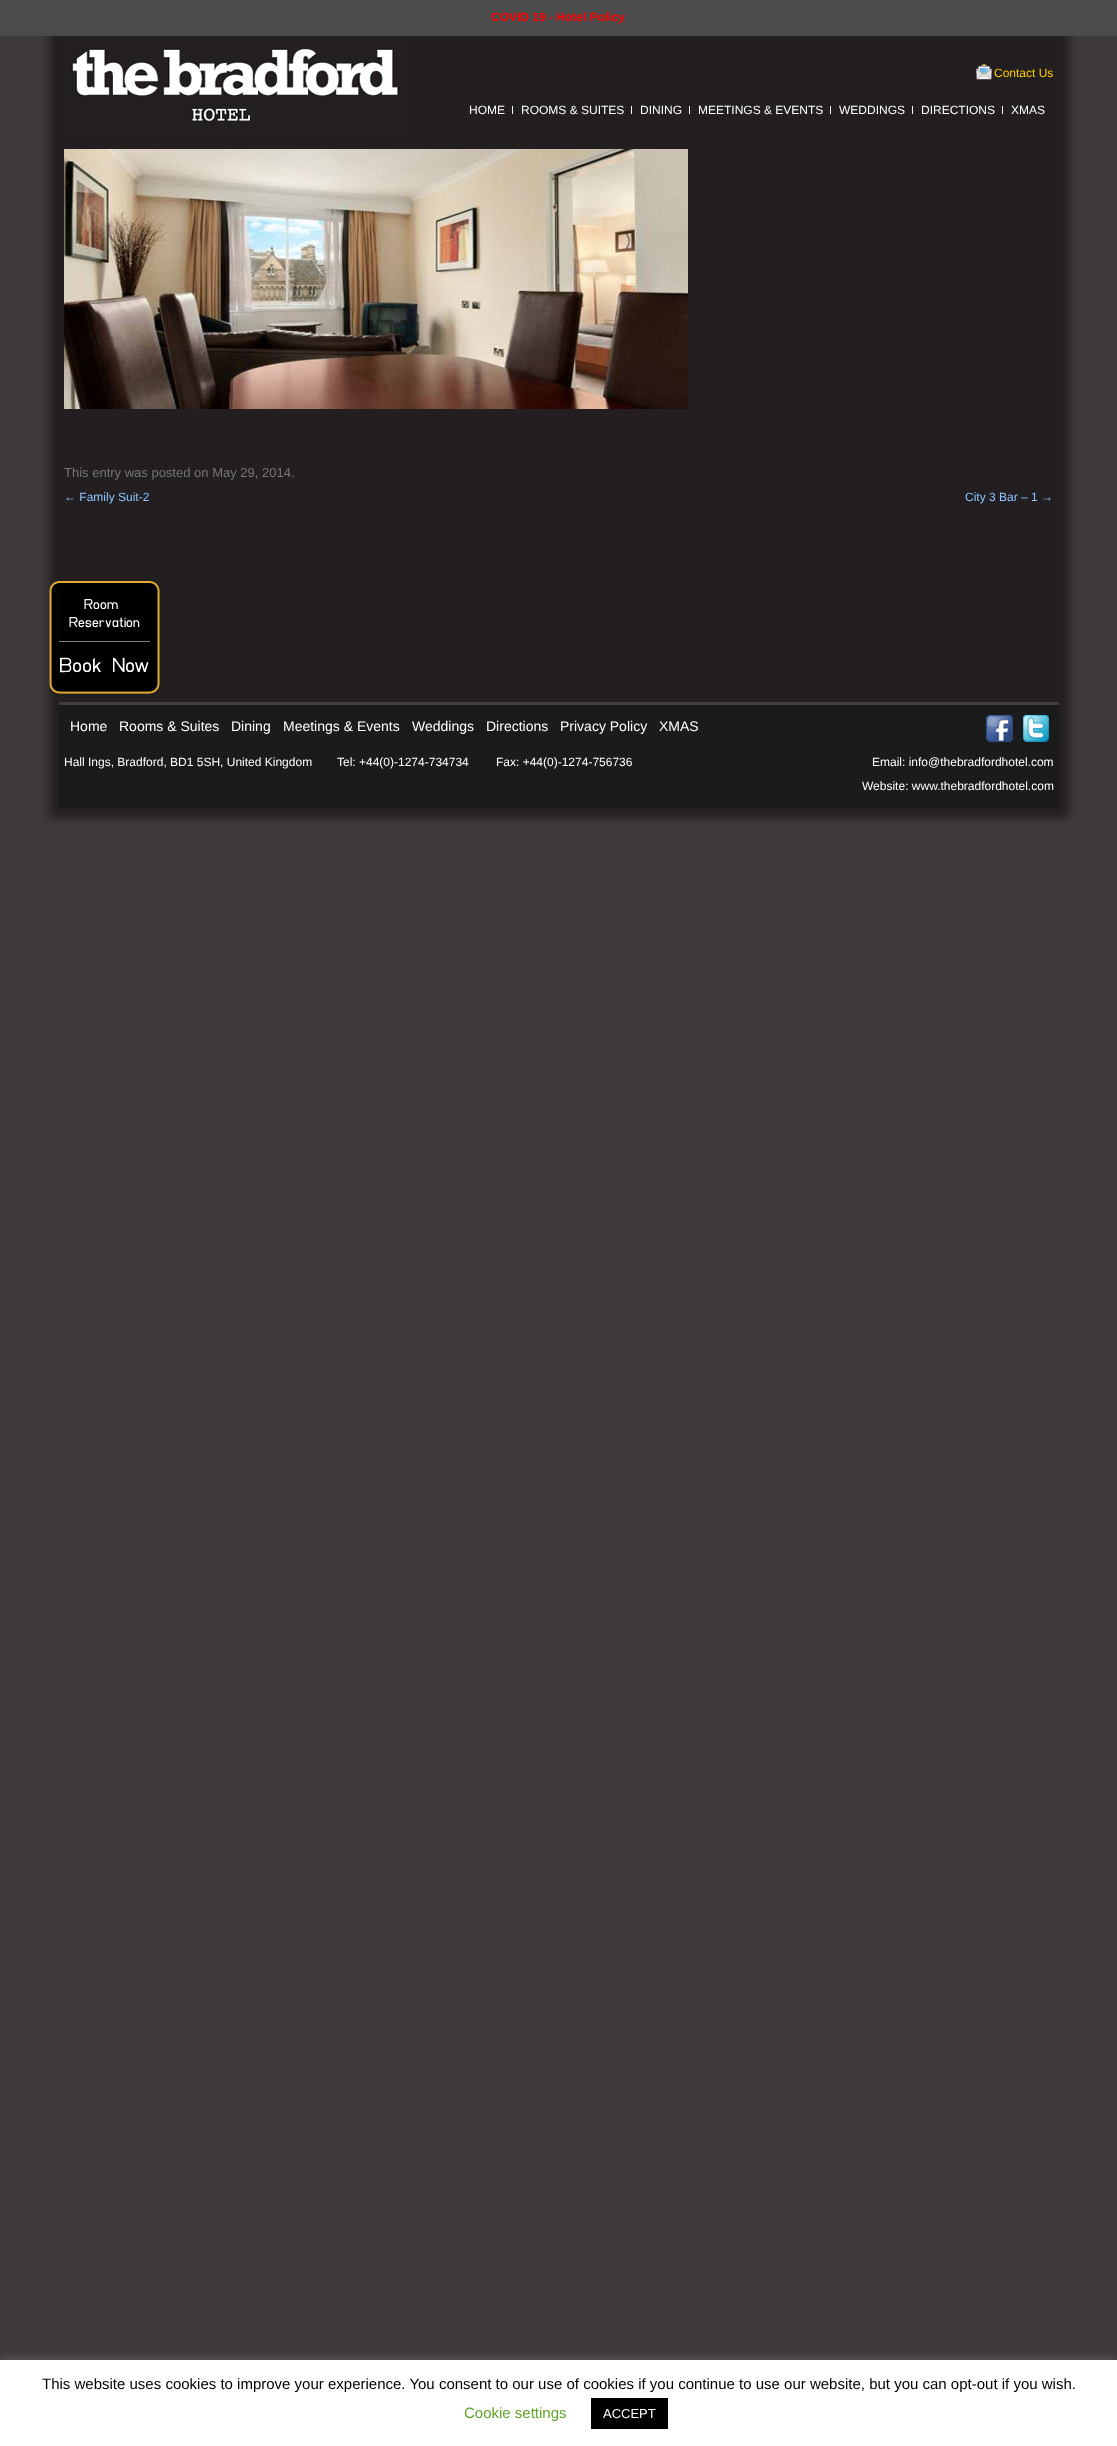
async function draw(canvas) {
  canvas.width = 1117
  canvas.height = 2446
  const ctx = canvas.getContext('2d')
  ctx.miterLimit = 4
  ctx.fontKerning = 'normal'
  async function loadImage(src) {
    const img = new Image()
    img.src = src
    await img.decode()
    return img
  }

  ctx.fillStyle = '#3f3a3b'
  ctx.fillRect(0, 0, 1117, 2446)
  ctx.fillStyle = '#231f20'
  ctx.filter = 'blur(5px)'
  ctx.beginPath()
  ctx.rect(49, 26, 1020, 792)
  ctx.fill()
  ctx.filter = 'none'
  ctx.fillStyle = '#4b4b4b'
  ctx.fillRect(0, 0, 1117, 36)
  ctx.font = 'bold 12px Liberation Sans'
  ctx.fillStyle = '#f00'
  ctx.fillText('COVID 19 - Hotel Policy', 491, 21)
  ctx.drawImage(await loadImage('image0.png'), 64, 40, 118, 91)
  ctx.drawImage(await loadImage('image1.png'), 182, 40, 225, 91)
  ctx.drawImage(await loadImage('image2.png'), 976, 64, 16, 16)
  ctx.font = '12px Liberation Sans'
  ctx.fillStyle = '#fc0'
  ctx.fillText('Contact Us', 994, 77)
  ctx.fillStyle = '#fff'
  ctx.fillText('HOME', 469, 114)
  ctx.fillRect(512, 106, 1, 8)
  ctx.fillText('ROOMS & SUITES', 521, 114)
  ctx.fillRect(631, 106, 1, 8)
  ctx.fillText('DINING', 640, 114)
  ctx.fillRect(689, 106, 1, 8)
  ctx.fillText('MEETINGS & EVENTS', 698, 114)
  ctx.fillRect(830, 106, 1, 8)
  ctx.fillText('WEDDINGS', 839, 114)
  ctx.fillRect(912, 106, 1, 8)
  ctx.fillText('DIRECTIONS', 921, 114)
  ctx.fillRect(1002, 106, 1, 8)
  ctx.fillText('XMAS', 1011, 114)
  ctx.drawImage(await loadImage('image3.png'), 64, 149, 624, 260)
  ctx.font = '13px Liberation Sans'
  ctx.fillStyle = '#757575'
  ctx.fillText('This entry was posted on May 29, 2014.', 64, 477)
  ctx.font = '12px Liberation Sans'
  ctx.fillStyle = '#8bc3ff'
  ctx.fillText('← Family Suit-2', 64, 501)
  ctx.fillText('City 3 Bar – 1 →', 965, 501)
  ctx.drawImage(await loadImage('image4.png'), 49, 581, 111, 113)
  ctx.fillStyle = '#1b1b1b'
  ctx.fillRect(59, 705, 1000, 103)
  ctx.fillStyle = '#3e3e3e'
  ctx.fillRect(59, 702, 1000, 3)
  ctx.font = '14px Liberation Sans'
  ctx.fillStyle = '#fff'
  ctx.fillText('Home', 70, 731)
  ctx.fillText('Rooms & Suites', 119, 731)
  ctx.fillText('Dining', 231, 731)
  ctx.fillText('Meetings & Events', 283, 731)
  ctx.fillText('Weddings', 412, 731)
  ctx.fillText('Directions', 486, 731)
  ctx.fillText('Privacy Policy', 560, 731)
  ctx.fillText('XMAS', 659, 731)
  ctx.font = '12px Liberation Sans'
  ctx.fillText('Hall Ings, Bradford, BD1 5SH, United Kingdom', 64, 766)
  ctx.fillText('Tel: +44(0)-1274-734734', 337, 766)
  ctx.fillText('Fax: +44(0)-1274-756736', 496, 766)
  ctx.drawImage(await loadImage('image5.png'), 986, 715, 27, 27)
  ctx.drawImage(await loadImage('image6.png'), 1023, 715, 26, 27)
  ctx.fillText('Email: info@thebradfordhotel.com', 872, 766)
  ctx.fillText('Website: www.thebradfordhotel.com', 862, 790)
  ctx.fillStyle = '#acabab4d'
  ctx.filter = 'blur(5px)'
  ctx.beginPath()
  ctx.rect(0, 2359, 1117, 86)
  ctx.fill()
  ctx.filter = 'none'
  ctx.fillStyle = '#fff'
  ctx.fillRect(0, 2360, 1117, 86)
  ctx.font = '15px Liberation Sans'
  ctx.fillStyle = '#000'
  ctx.fillText('This website uses cookies to improve your experience. You consent to our use of cookies if you continue to use our website, but you can opt-out if you wish.', 42, 2389)
  ctx.fillStyle = '#62a329'
  ctx.fillText('Cookie settings', 464, 2418)
  ctx.fillStyle = '#000'
  ctx.fillRect(591, 2398, 77, 31)
  ctx.font = '13px Liberation Sans'
  ctx.fillStyle = '#fff'
  ctx.fillText('ACCEPT', 603, 2418)
}

draw(document.querySelector('canvas'))
